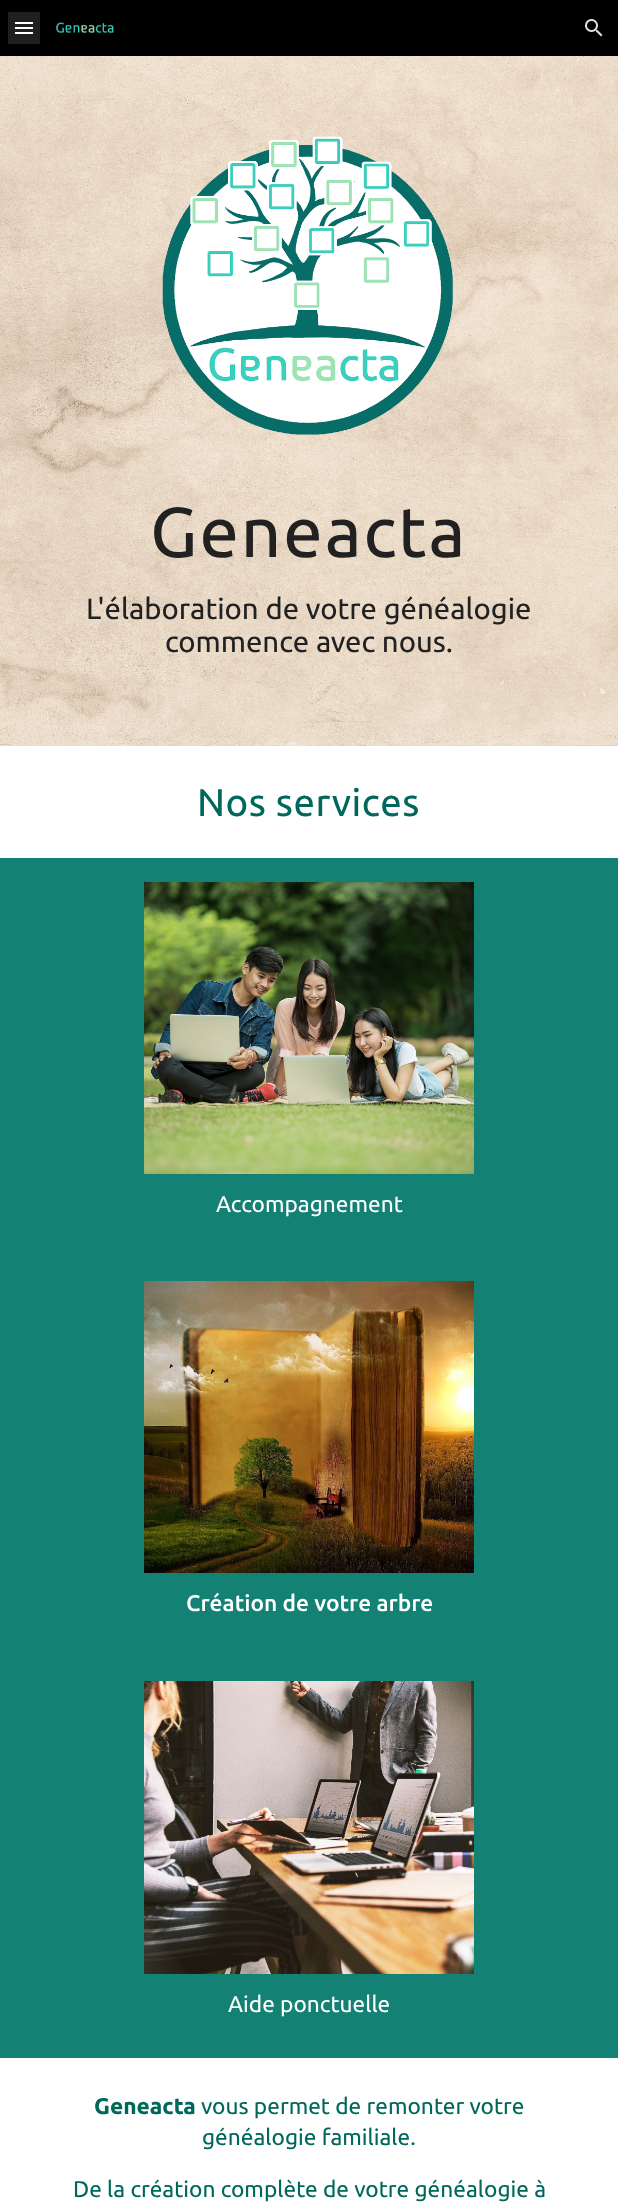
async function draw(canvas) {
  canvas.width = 618
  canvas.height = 2208
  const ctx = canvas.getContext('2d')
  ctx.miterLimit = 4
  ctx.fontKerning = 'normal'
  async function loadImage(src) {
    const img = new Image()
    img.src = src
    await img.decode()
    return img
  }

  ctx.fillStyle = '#fff'
  ctx.fillRect(0, 0, 618, 2208)
  ctx.fillStyle = '#000'
  ctx.fillRect(0, 0, 618, 56)
  ctx.drawImage(await loadImage('image0.png'), 55, 22, 59, 12)
  ctx.drawImage(await loadImage('image1.png'), 585, 19, 18, 18)
  ctx.fillStyle = '#fff'
  ctx.fillRect(15, 22, 18, 2)
  ctx.fillRect(15, 27, 18, 2)
  ctx.fillRect(15, 32, 18, 2)
  ctx.fillStyle = '#ffffff1f'
  ctx.fillRect(8, 12, 32, 32)
  ctx.drawImage(await loadImage('image2.png'), 0, 56, 618, 690)
  ctx.drawImage(await loadImage('image3.png'), 162, 136, 291, 299)
  ctx.letterSpacing = '2px'
  ctx.font = '70.5px Ubuntu'
  ctx.fillStyle = '#212121'
  ctx.fillText('Geneacta', 150, 557)
  ctx.letterSpacing = '0px'
  ctx.font = '29.3px Ubuntu'
  ctx.fillText('L\'élaboration de votre généalogie', 86, 619)
  ctx.fillText('commence avec nous.', 165, 652)
  ctx.letterSpacing = '0.5px'
  ctx.font = '38.5px Ubuntu'
  ctx.fillStyle = '#00685b'
  ctx.fillText('Nos services', 197, 816)
  ctx.fillStyle = '#138275'
  ctx.fillRect(0, 858, 618, 1200)
  ctx.drawImage(await loadImage('image4.png'), 144, 882, 330, 292)
  ctx.letterSpacing = '0px'
  ctx.font = '22.7px Ubuntu'
  ctx.fillStyle = '#fff'
  ctx.fillText('Accompagnement', 216, 1212)
  ctx.drawImage(await loadImage('image5.png'), 144, 1281, 330, 292)
  ctx.font = '500 22.7px Ubuntu'
  ctx.fillText('Création de votre arbre', 186, 1611)
  ctx.drawImage(await loadImage('image6.png'), 144, 1681, 330, 293)
  ctx.font = '22.7px Ubuntu'
  ctx.fillText('Aide ponctuelle', 228, 2012)
  ctx.font = 'bold 22.7px Ubuntu'
  ctx.fillStyle = '#00685b'
  ctx.fillText('Geneacta', 94, 2114)
  ctx.font = '22.7px Ubuntu'
  ctx.fillText('vous permet de remonter votre', 201, 2114)
  ctx.fillText('généalogie familiale.', 202, 2145)
  ctx.fillText('De la création complète de votre généalogie à', 73, 2197)
}

draw(document.querySelector('canvas'))
